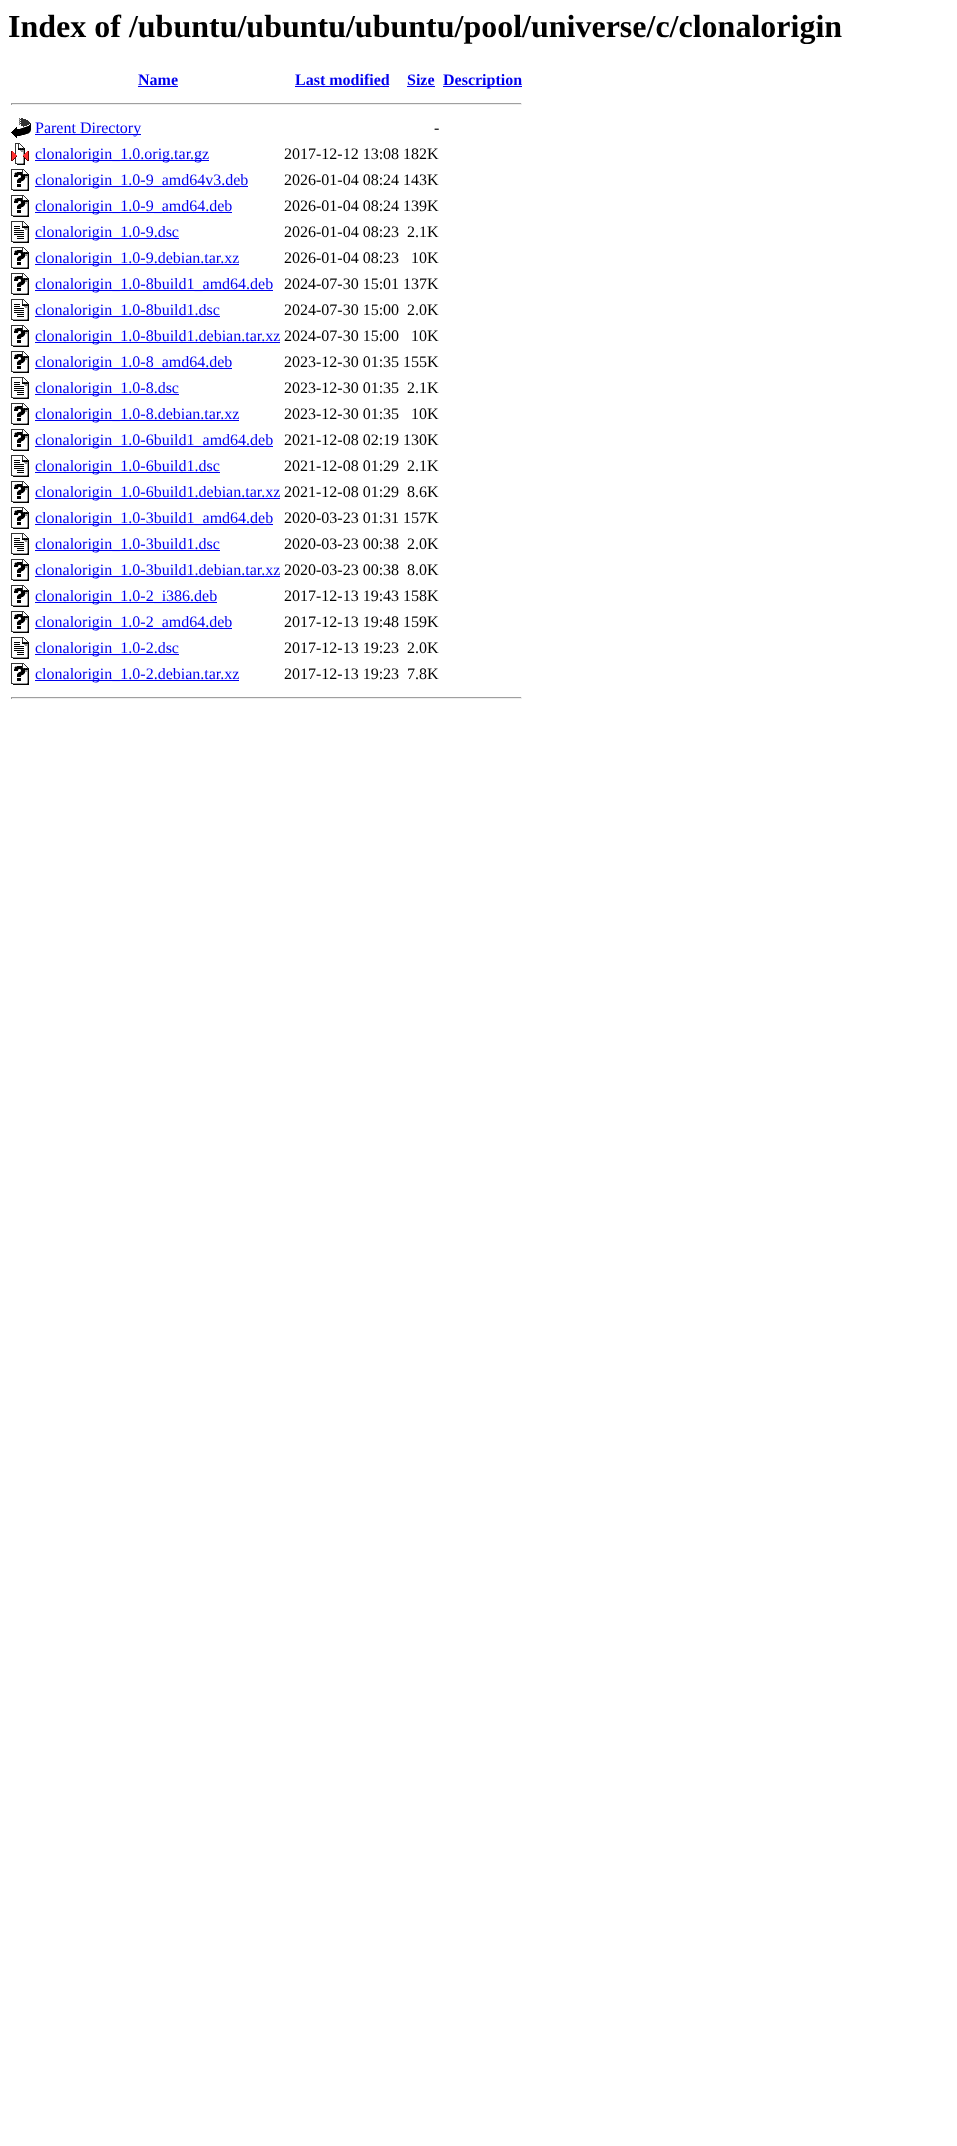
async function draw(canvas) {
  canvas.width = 957
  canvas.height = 2146
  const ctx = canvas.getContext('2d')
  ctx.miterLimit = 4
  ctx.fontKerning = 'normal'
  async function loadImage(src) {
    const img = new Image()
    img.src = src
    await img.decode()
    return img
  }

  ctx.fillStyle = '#fff'
  ctx.fillRect(0, 0, 957, 2146)
  ctx.font = 'bold 32px Liberation Serif'
  ctx.fillStyle = '#000'
  ctx.fillText('Index of /ubuntu/ubuntu/ubuntu/pool/universe/c/clonalorigin', 8, 37)
  ctx.font = 'bold 16px Liberation Serif'
  ctx.fillStyle = '#00e'
  ctx.fillText('Name', 138, 85)
  ctx.fillRect(138, 86, 40, 1)
  ctx.fillText('Last modified', 295, 85)
  ctx.fillRect(295, 86, 94, 1)
  ctx.fillText('Size', 407, 85)
  ctx.fillRect(407, 86, 28, 1)
  ctx.fillRect(443, 86, 79, 1)
  ctx.fillText('Description', 443, 85)
  ctx.fillStyle = '#9f9f9f'
  ctx.fillRect(11, 103, 511, 1)
  ctx.fillStyle = '#eee'
  ctx.fillRect(521, 103, 1, 2)
  ctx.fillRect(11, 104, 511, 1)
  ctx.fillStyle = '#9f9f9f'
  ctx.fillRect(11, 103, 1, 2)
  ctx.drawImage(await loadImage('image0.png'), 11, 118, 20, 20)
  ctx.fillStyle = '#00e'
  ctx.fillRect(35, 134, 106, 1)
  ctx.font = '16px Liberation Serif'
  ctx.fillText('Parent Directory', 35, 133)
  ctx.fillStyle = '#000'
  ctx.fillText('-', 434, 133)
  ctx.drawImage(await loadImage('image1.png'), 11, 143, 18, 22)
  ctx.fillStyle = '#00e'
  ctx.fillRect(35, 160, 174, 1)
  ctx.fillText('clonalorigin_1.0.orig.tar.gz', 35, 159)
  ctx.fillStyle = '#000'
  ctx.fillText('2017-12-12 13:08 182K', 284, 159)
  ctx.drawImage(await loadImage('image2.png'), 11, 169, 18, 22)
  ctx.fillStyle = '#00e'
  ctx.fillRect(35, 186, 213, 1)
  ctx.fillText('clonalorigin_1.0-9_amd64v3.deb', 35, 185)
  ctx.fillStyle = '#000'
  ctx.fillText('2026-01-04 08:24 143K', 284, 185)
  ctx.drawImage(await loadImage('image2.png'), 11, 195, 18, 22)
  ctx.fillStyle = '#00e'
  ctx.fillRect(35, 212, 197, 1)
  ctx.fillText('clonalorigin_1.0-9_amd64.deb', 35, 211)
  ctx.fillStyle = '#000'
  ctx.fillText('2026-01-04 08:24 139K', 284, 211)
  ctx.drawImage(await loadImage('image3.png'), 11, 221, 18, 22)
  ctx.fillStyle = '#00e'
  ctx.fillRect(35, 238, 144, 1)
  ctx.fillText('clonalorigin_1.0-9.dsc', 35, 237)
  ctx.fillStyle = '#000'
  ctx.fillText('2026-01-04 08:23', 284, 237)
  ctx.fillText('2.1K', 407, 237)
  ctx.drawImage(await loadImage('image2.png'), 11, 247, 18, 22)
  ctx.fillStyle = '#00e'
  ctx.fillRect(35, 264, 204, 1)
  ctx.fillText('clonalorigin_1.0-9.debian.tar.xz', 35, 263)
  ctx.fillStyle = '#000'
  ctx.fillText('2026-01-04 08:23', 284, 263)
  ctx.fillText('10K', 411, 263)
  ctx.drawImage(await loadImage('image2.png'), 11, 273, 18, 22)
  ctx.fillStyle = '#00e'
  ctx.fillRect(35, 290, 238, 1)
  ctx.fillText('clonalorigin_1.0-8build1_amd64.deb', 35, 289)
  ctx.fillStyle = '#000'
  ctx.fillText('2024-07-30 15:01 137K', 284, 289)
  ctx.drawImage(await loadImage('image3.png'), 11, 299, 18, 22)
  ctx.fillStyle = '#00e'
  ctx.fillRect(35, 316, 185, 1)
  ctx.fillText('clonalorigin_1.0-8build1.dsc', 35, 315)
  ctx.fillStyle = '#000'
  ctx.fillText('2024-07-30 15:00', 284, 315)
  ctx.fillText('2.0K', 407, 315)
  ctx.drawImage(await loadImage('image2.png'), 11, 325, 18, 22)
  ctx.fillStyle = '#00e'
  ctx.fillRect(35, 342, 245, 1)
  ctx.fillText('clonalorigin_1.0-8build1.debian.tar.xz', 35, 341)
  ctx.fillStyle = '#000'
  ctx.fillText('2024-07-30 15:00', 284, 341)
  ctx.fillText('10K', 411, 341)
  ctx.drawImage(await loadImage('image2.png'), 11, 351, 18, 22)
  ctx.fillStyle = '#00e'
  ctx.fillRect(35, 368, 197, 1)
  ctx.fillText('clonalorigin_1.0-8_amd64.deb', 35, 367)
  ctx.fillStyle = '#000'
  ctx.fillText('2023-12-30 01:35 155K', 284, 367)
  ctx.drawImage(await loadImage('image3.png'), 11, 377, 18, 22)
  ctx.fillStyle = '#00e'
  ctx.fillRect(35, 394, 144, 1)
  ctx.fillText('clonalorigin_1.0-8.dsc', 35, 393)
  ctx.fillStyle = '#000'
  ctx.fillText('2023-12-30 01:35', 284, 393)
  ctx.fillText('2.1K', 407, 393)
  ctx.drawImage(await loadImage('image2.png'), 11, 403, 18, 22)
  ctx.fillStyle = '#00e'
  ctx.fillRect(35, 420, 204, 1)
  ctx.fillText('clonalorigin_1.0-8.debian.tar.xz', 35, 419)
  ctx.fillStyle = '#000'
  ctx.fillText('2023-12-30 01:35', 284, 419)
  ctx.fillText('10K', 411, 419)
  ctx.drawImage(await loadImage('image2.png'), 11, 429, 18, 22)
  ctx.fillStyle = '#00e'
  ctx.fillRect(35, 446, 238, 1)
  ctx.fillText('clonalorigin_1.0-6build1_amd64.deb', 35, 445)
  ctx.fillStyle = '#000'
  ctx.fillText('2021-12-08 02:19 130K', 284, 445)
  ctx.drawImage(await loadImage('image3.png'), 11, 455, 18, 22)
  ctx.fillStyle = '#00e'
  ctx.fillRect(35, 472, 185, 1)
  ctx.fillText('clonalorigin_1.0-6build1.dsc', 35, 471)
  ctx.fillStyle = '#000'
  ctx.fillText('2021-12-08 01:29', 284, 471)
  ctx.fillText('2.1K', 407, 471)
  ctx.drawImage(await loadImage('image2.png'), 11, 481, 18, 22)
  ctx.fillStyle = '#00e'
  ctx.fillRect(35, 498, 245, 1)
  ctx.fillText('clonalorigin_1.0-6build1.debian.tar.xz', 35, 497)
  ctx.fillStyle = '#000'
  ctx.fillText('2021-12-08 01:29', 284, 497)
  ctx.fillText('8.6K', 407, 497)
  ctx.drawImage(await loadImage('image2.png'), 11, 507, 18, 22)
  ctx.fillStyle = '#00e'
  ctx.fillRect(35, 524, 238, 1)
  ctx.fillText('clonalorigin_1.0-3build1_amd64.deb', 35, 523)
  ctx.fillStyle = '#000'
  ctx.fillText('2020-03-23 01:31 157K', 284, 523)
  ctx.drawImage(await loadImage('image3.png'), 11, 533, 18, 22)
  ctx.fillStyle = '#00e'
  ctx.fillRect(35, 550, 185, 1)
  ctx.fillText('clonalorigin_1.0-3build1.dsc', 35, 549)
  ctx.fillStyle = '#000'
  ctx.fillText('2020-03-23 00:38', 284, 549)
  ctx.fillText('2.0K', 407, 549)
  ctx.drawImage(await loadImage('image2.png'), 11, 559, 18, 22)
  ctx.fillStyle = '#00e'
  ctx.fillRect(35, 576, 245, 1)
  ctx.fillText('clonalorigin_1.0-3build1.debian.tar.xz', 35, 575)
  ctx.fillStyle = '#000'
  ctx.fillText('2020-03-23 00:38', 284, 575)
  ctx.fillText('8.0K', 407, 575)
  ctx.drawImage(await loadImage('image2.png'), 11, 585, 18, 22)
  ctx.fillStyle = '#00e'
  ctx.fillRect(35, 602, 182, 1)
  ctx.fillText('clonalorigin_1.0-2_i386.deb', 35, 601)
  ctx.fillStyle = '#000'
  ctx.fillText('2017-12-13 19:43 158K', 284, 601)
  ctx.drawImage(await loadImage('image2.png'), 11, 611, 18, 22)
  ctx.fillStyle = '#00e'
  ctx.fillRect(35, 628, 197, 1)
  ctx.fillText('clonalorigin_1.0-2_amd64.deb', 35, 627)
  ctx.fillStyle = '#000'
  ctx.fillText('2017-12-13 19:48 159K', 284, 627)
  ctx.drawImage(await loadImage('image3.png'), 11, 637, 18, 22)
  ctx.fillStyle = '#00e'
  ctx.fillRect(35, 654, 144, 1)
  ctx.fillText('clonalorigin_1.0-2.dsc', 35, 653)
  ctx.fillStyle = '#000'
  ctx.fillText('2017-12-13 19:23', 284, 653)
  ctx.fillText('2.0K', 407, 653)
  ctx.drawImage(await loadImage('image2.png'), 11, 663, 18, 22)
  ctx.fillStyle = '#00e'
  ctx.fillRect(35, 680, 204, 1)
  ctx.fillText('clonalorigin_1.0-2.debian.tar.xz', 35, 679)
  ctx.fillStyle = '#000'
  ctx.fillText('2017-12-13 19:23', 284, 679)
  ctx.fillText('7.8K', 407, 679)
  ctx.fillStyle = '#9f9f9f'
  ctx.fillRect(11, 697, 511, 1)
  ctx.fillStyle = '#eee'
  ctx.fillRect(521, 697, 1, 2)
  ctx.fillRect(11, 698, 511, 1)
  ctx.fillStyle = '#9f9f9f'
  ctx.fillRect(11, 697, 1, 2)
}

draw(document.querySelector('canvas'))
